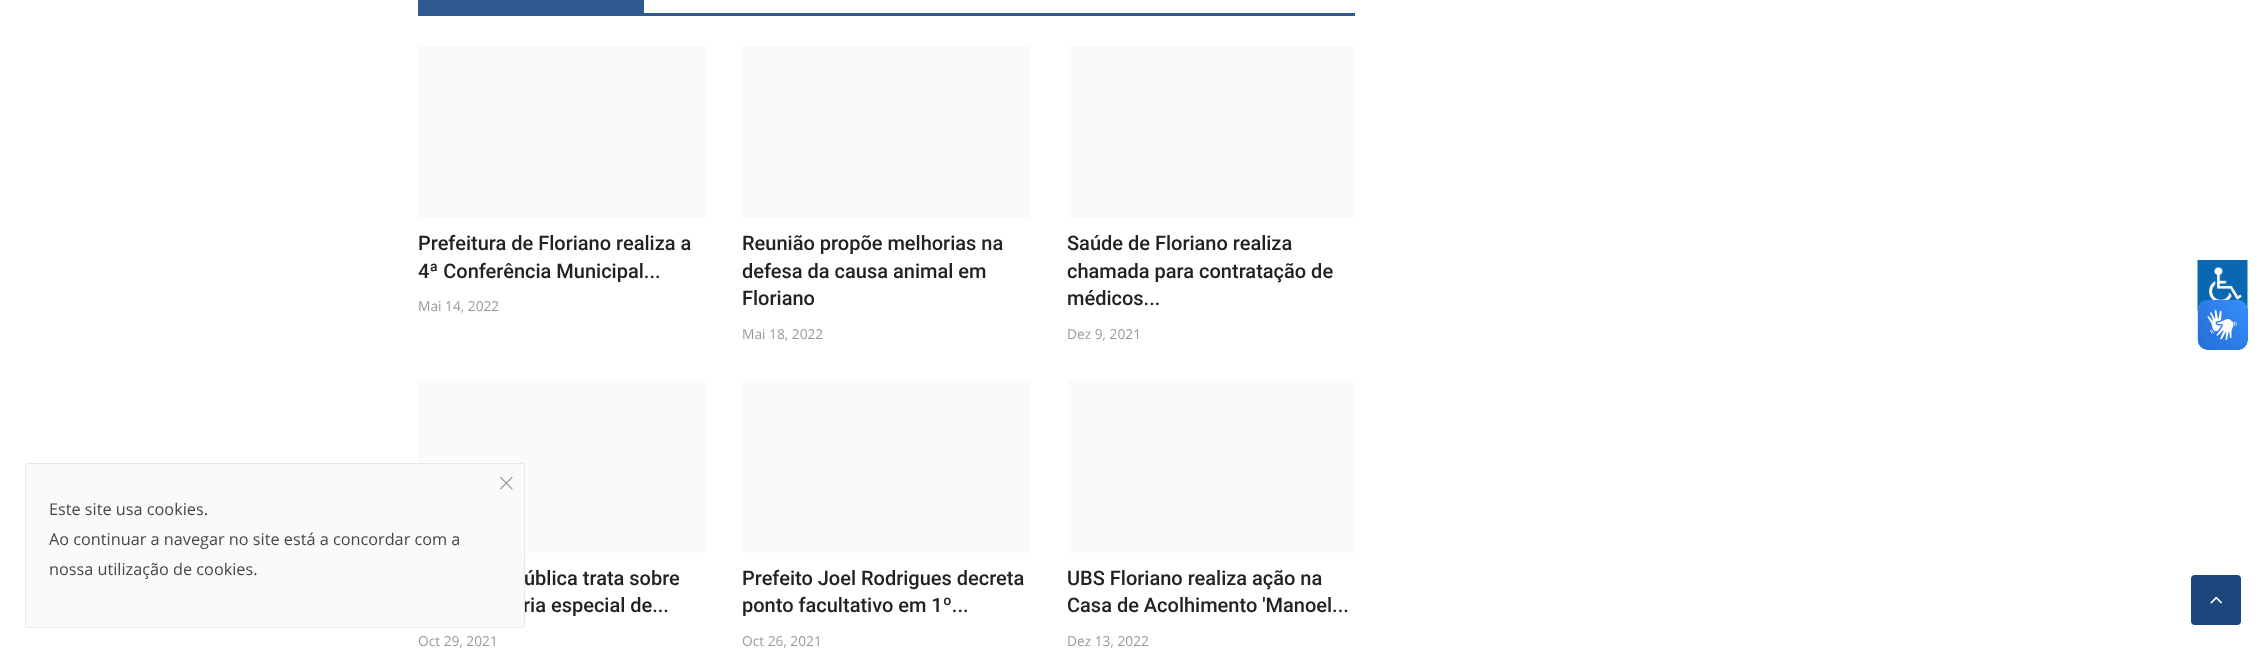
async function draw(canvas) {
  canvas.width = 2260
  canvas.height = 650
  const ctx = canvas.getContext('2d')
  ctx.miterLimit = 4
  ctx.fontKerning = 'normal'
  async function loadImage(src) {
    const img = new Image()
    img.src = src
    await img.decode()
    return img
  }

  ctx.fillStyle = '#fff'
  ctx.fillRect(0, 0, 2260, 650)
  ctx.fillStyle = '#2e5a91'
  ctx.fillRect(418, 13, 937, 3)
  ctx.fillRect(418, 0, 226, 13)
  ctx.fillStyle = '#fafafa'
  ctx.fillRect(418, 46, 287, 172)
  ctx.font = '500 20px Roboto'
  ctx.fillStyle = '#222'
  ctx.fillText('Prefeitura de Floriano realiza a', 418, 250)
  ctx.fillText('4ª Conferência Municipal...', 418, 278)
  ctx.font = '13.75px Open Sans'
  ctx.fillStyle = '#999'
  ctx.fillText('Mai 14, 2022', 418, 311)
  ctx.fillStyle = '#fafafa'
  ctx.fillRect(743, 46, 287, 172)
  ctx.font = '500 20px Roboto'
  ctx.fillStyle = '#222'
  ctx.fillText('Reunião propõe melhorias na', 742, 250)
  ctx.fillText('defesa da causa animal em', 742, 278)
  ctx.fillText('Floriano', 742, 305)
  ctx.font = '13.75px Open Sans'
  ctx.fillStyle = '#999'
  ctx.fillText('Mai 18, 2022', 742, 339)
  ctx.fillStyle = '#fafafa'
  ctx.fillRect(1068, 46, 287, 172)
  ctx.font = '500 20px Roboto'
  ctx.fillStyle = '#222'
  ctx.fillText('Saúde de Floriano realiza', 1067, 250)
  ctx.fillText('chamada para contratação de', 1067, 278)
  ctx.fillText('médicos...', 1067, 305)
  ctx.font = '13.75px Open Sans'
  ctx.fillStyle = '#999'
  ctx.fillText('Dez 9, 2021', 1067, 339)
  ctx.fillStyle = '#fafafa'
  ctx.fillRect(418, 381, 287, 172)
  ctx.font = '500 20px Roboto'
  ctx.fillStyle = '#222'
  ctx.fillText('ública trata sobre', 524, 585)
  ctx.fillText('ria especial de...', 523, 612)
  ctx.font = '13.75px Open Sans'
  ctx.fillStyle = '#999'
  ctx.fillText('Oct 29, 2021', 418, 646)
  ctx.fillStyle = '#fafafa'
  ctx.fillRect(743, 381, 287, 172)
  ctx.font = '500 20px Roboto'
  ctx.fillStyle = '#222'
  ctx.fillText('Prefeito Joel Rodrigues decreta', 742, 585)
  ctx.fillText('ponto facultativo em 1º...', 742, 612)
  ctx.font = '13.75px Open Sans'
  ctx.fillStyle = '#999'
  ctx.fillText('Oct 26, 2021', 742, 646)
  ctx.fillStyle = '#fafafa'
  ctx.fillRect(1068, 381, 287, 172)
  ctx.font = '500 20px Roboto'
  ctx.fillStyle = '#222'
  ctx.fillText('UBS Floriano realiza ação na', 1067, 585)
  ctx.fillText('Casa de Acolhimento \'Manoel...', 1067, 612)
  ctx.font = '13.75px Open Sans'
  ctx.fillStyle = '#999'
  ctx.fillText('Dez 13, 2022', 1067, 646)
  ctx.drawImage(await loadImage('image0.png'), 2197, 260, 51, 50)
  ctx.drawImage(await loadImage('image1.png'), 2197, 300, 51, 50)
  ctx.drawImage(await loadImage('image2.png'), 2198, 300, 50, 50)
  ctx.fillStyle = '#fafafce6'
  ctx.beginPath()
  ctx.roundRect(25, 463, 500, 165, 2.5)
  ctx.fill()
  ctx.beginPath()
  ctx.roundRect(25.5, 463.5, 499, 164, 2)
  ctx.strokeStyle = '#e5e5e8e6'
  ctx.stroke()
  ctx.drawImage(await loadImage('image3.png'), 500, 476, 13, 14)
  ctx.font = '16.25px Open Sans'
  ctx.fillStyle = '#474747'
  ctx.fillText('Este site usa cookies.', 49, 515)
  ctx.fillText('Ao continuar a navegar no site está a concordar com a', 49, 545)
  ctx.fillText('nossa utilização de cookies.', 49, 575)
  ctx.fillStyle = '#1d477c'
  ctx.beginPath()
  ctx.roundRect(2191, 575, 50, 50, 4)
  ctx.fill()
  ctx.drawImage(await loadImage('image4.png'), 2210, 596, 12, 8)
}

draw(document.querySelector('canvas'))
